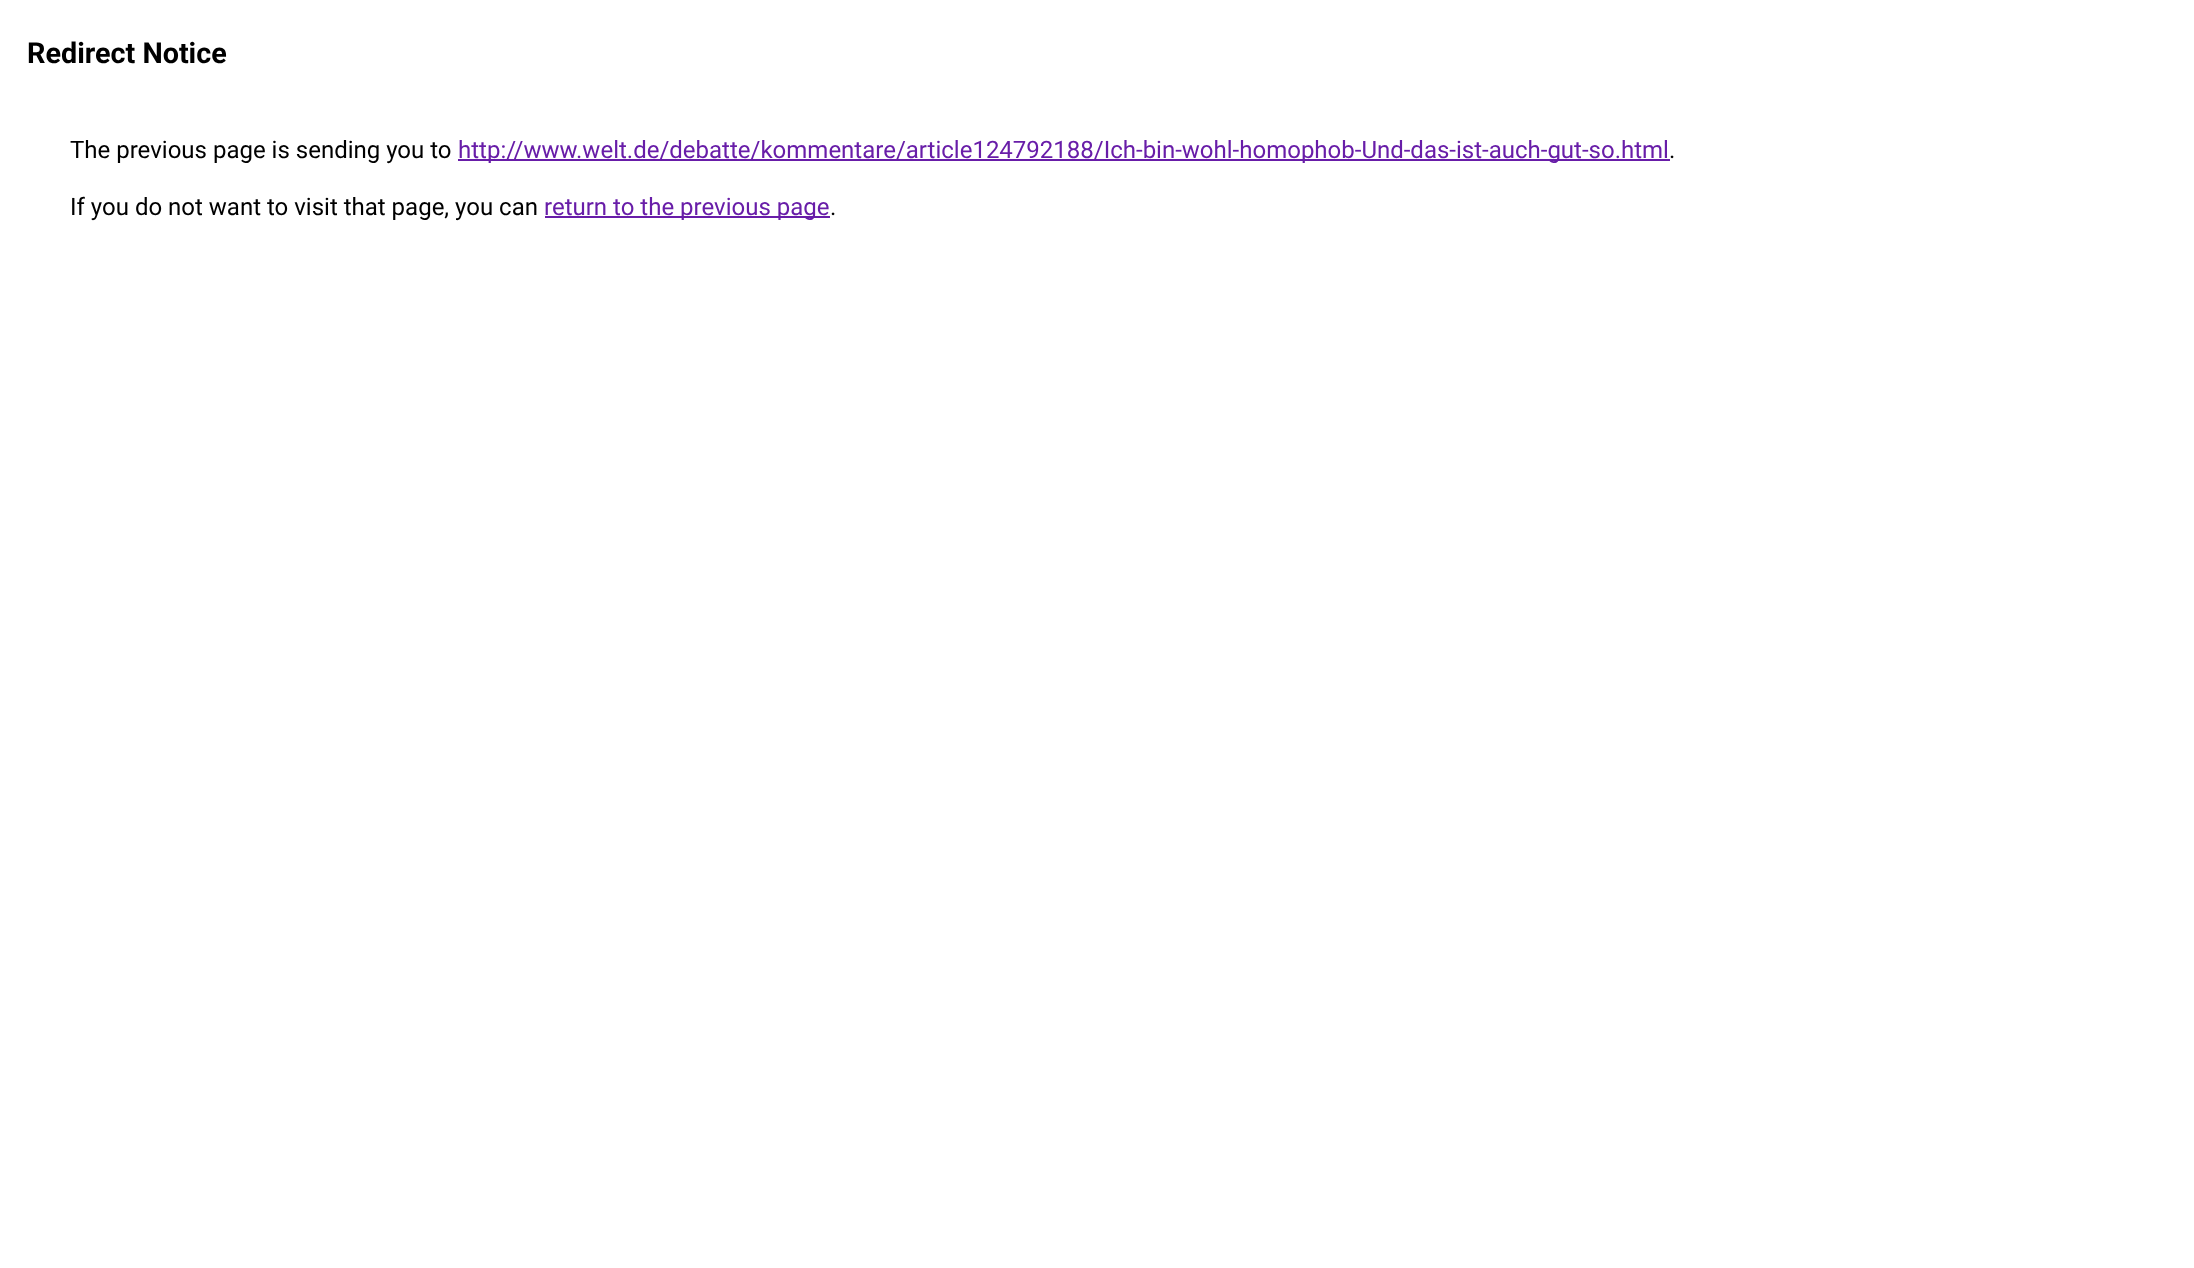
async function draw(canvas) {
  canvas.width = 2194
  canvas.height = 1268
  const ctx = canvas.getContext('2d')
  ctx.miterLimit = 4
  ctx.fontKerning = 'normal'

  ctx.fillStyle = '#fff'
  ctx.fillRect(0, 0, 2194, 1268)
  ctx.font = 'bold 28.75px Roboto'
  ctx.fillStyle = '#000'
  ctx.fillText('Redirect Notice', 27, 63)
  ctx.font = '24px Roboto'
  ctx.fillText('The previous page is sending you to', 70, 158)
  ctx.fillStyle = '#681da8'
  ctx.fillRect(458, 159, 1212, 2)
  ctx.fillText('http://www.welt.de/debatte/kommentare/article124792188/Ich-bin-wohl-homophob-Und-das-ist-auch-gut-so.html', 458, 158)
  ctx.fillStyle = '#000'
  ctx.fillText('.', 1669, 158)
  ctx.fillText('If you do not want to visit that page, you can', 70, 215)
  ctx.fillStyle = '#681da8'
  ctx.fillRect(545, 216, 285, 2)
  ctx.fillText('return to the previous page', 544, 215)
  ctx.fillStyle = '#000'
  ctx.fillText('.', 830, 215)
}

draw(document.querySelector('canvas'))
